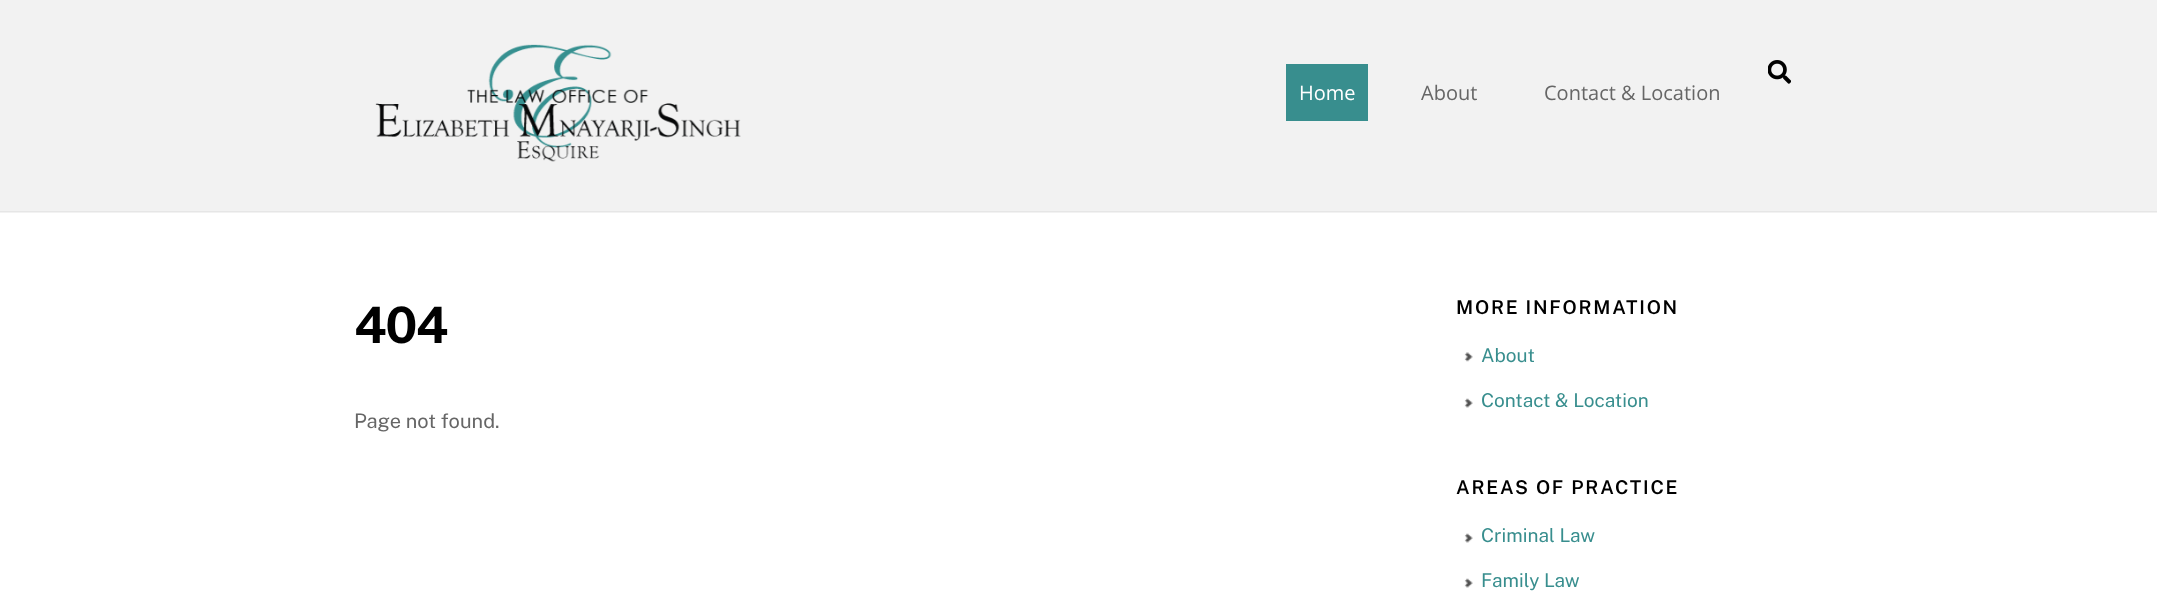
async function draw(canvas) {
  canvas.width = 2157
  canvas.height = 601
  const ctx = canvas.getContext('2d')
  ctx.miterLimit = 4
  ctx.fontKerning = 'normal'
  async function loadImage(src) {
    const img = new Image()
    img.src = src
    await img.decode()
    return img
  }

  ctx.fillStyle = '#fff'
  ctx.fillRect(0, 0, 2157, 601)
  ctx.fillStyle = '#f2f2f2'
  ctx.fillRect(0, 0, 2157, 213)
  ctx.fillStyle = '#e6e6e6'
  ctx.fillRect(0, 211, 2157, 1)
  ctx.drawImage(await loadImage('image0.png'), 375, 44, 366, 118)
  ctx.drawImage(await loadImage('image1.png'), 1768, 60, 23, 24)
  ctx.fillStyle = '#388e8e'
  ctx.fillRect(1286, 64, 82, 57)
  ctx.font = '20px Open Sans'
  ctx.fillStyle = '#fff'
  ctx.fillText('Home', 1299, 100)
  ctx.fillStyle = '#666'
  ctx.fillText('About', 1421, 100)
  ctx.fillText('Contact & Location', 1544, 100)
  ctx.letterSpacing = '-1.5px'
  ctx.font = 'bold 50px Public Sans'
  ctx.fillStyle = '#000'
  ctx.fillText('404', 354, 343)
  ctx.letterSpacing = '0px'
  ctx.font = '20px Public Sans'
  ctx.fillStyle = '#666'
  ctx.fillText('Page not found.', 354, 428)
  ctx.letterSpacing = '1.75px'
  ctx.font = '600 19px Public Sans'
  ctx.fillStyle = '#000'
  ctx.fillText('MORE INFORMATION', 1456, 314)
  ctx.drawImage(await loadImage('image2.png'), 1464, 352, 9, 10)
  ctx.letterSpacing = '0px'
  ctx.font = '19px Public Sans'
  ctx.fillStyle = '#388e8e'
  ctx.fillText('About', 1481, 362)
  ctx.drawImage(await loadImage('image3.png'), 1464, 398, 9, 10)
  ctx.fillText('Contact & Location', 1481, 407)
  ctx.letterSpacing = '1.75px'
  ctx.font = '600 19px Public Sans'
  ctx.fillStyle = '#000'
  ctx.fillText('AREAS OF PRACTICE', 1456, 494)
  ctx.drawImage(await loadImage('image3.png'), 1464, 533, 9, 10)
  ctx.letterSpacing = '0px'
  ctx.font = '19px Public Sans'
  ctx.fillStyle = '#388e8e'
  ctx.fillText('Criminal Law', 1481, 542)
  ctx.drawImage(await loadImage('image3.png'), 1464, 578, 9, 10)
  ctx.fillText('Family Law', 1481, 587)
}

draw(document.querySelector('canvas'))
